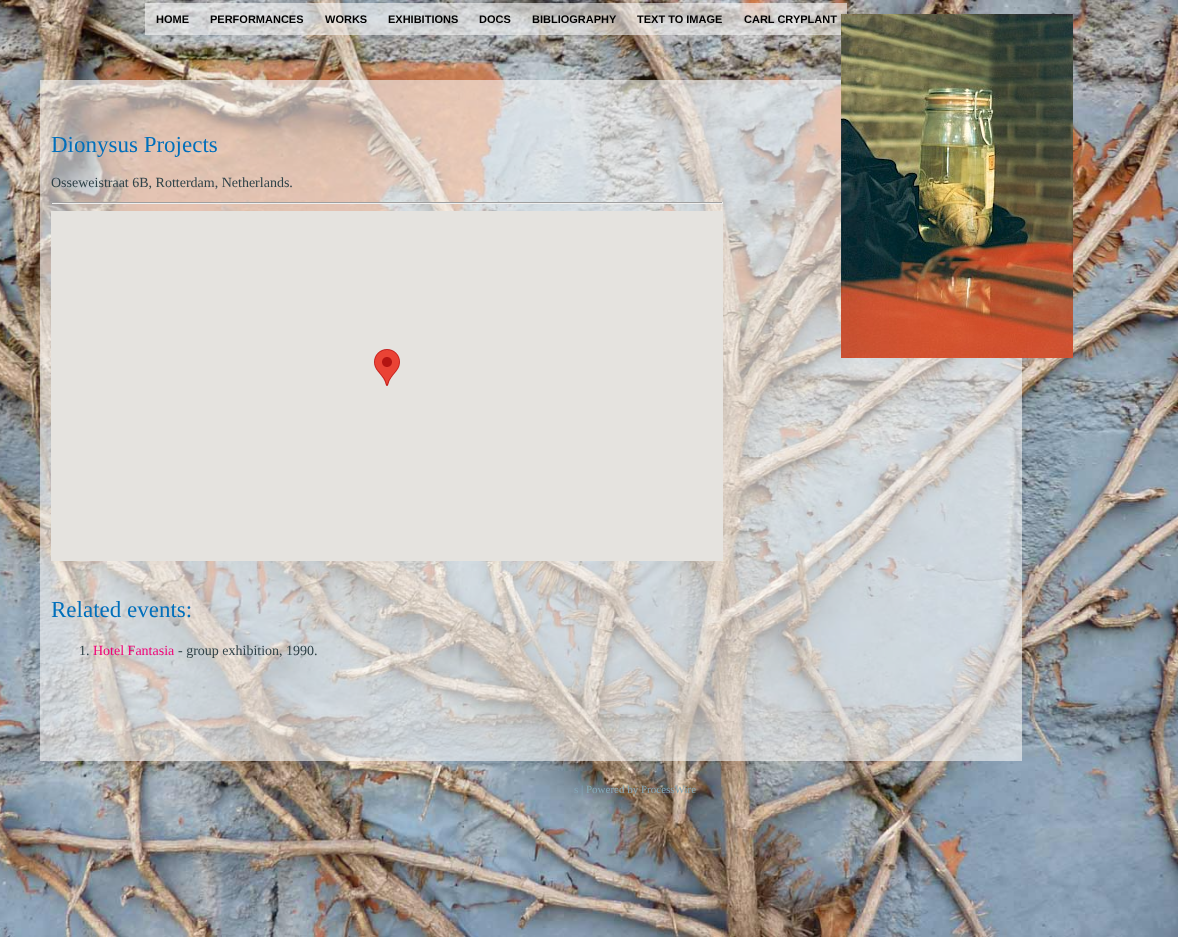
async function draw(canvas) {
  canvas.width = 1178
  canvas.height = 937
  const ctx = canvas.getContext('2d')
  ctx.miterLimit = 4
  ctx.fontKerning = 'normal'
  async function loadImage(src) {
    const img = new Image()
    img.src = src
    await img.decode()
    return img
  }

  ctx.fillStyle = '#fff'
  ctx.fillRect(0, 0, 1178, 937)
  ctx.drawImage(await loadImage('image0.png'), 0, 0, 1178, 937)
  ctx.fillStyle = '#f8f8f899'
  ctx.fillRect(145, 3, 702, 32)
  ctx.font = 'bold 11px Liberation Sans'
  ctx.fillStyle = '#000'
  ctx.fillText('HOME', 156, 23)
  ctx.fillText('PERFORMANCES', 210, 23)
  ctx.fillText('WORKS', 325, 23)
  ctx.fillText('EXHIBITIONS', 388, 23)
  ctx.fillText('DOCS', 479, 23)
  ctx.fillText('BIBLIOGRAPHY', 532, 23)
  ctx.fillText('TEXT TO IMAGE', 637, 23)
  ctx.fillText('CARL CRYPLANT', 744, 23)
  ctx.fillStyle = '#f8f8f899'
  ctx.fillRect(40, 80, 982, 681)
  ctx.drawImage(await loadImage('image1.png'), 841, 14, 232, 344)
  ctx.font = '23px Liberation Serif'
  ctx.fillStyle = '#006fbb'
  ctx.fillText('Dionysus Projects', 51, 152)
  ctx.font = '14px Liberation Serif'
  ctx.fillStyle = '#2f4248'
  ctx.fillText('Osseweistraat 6B, Rotterdam, Netherlands.', 51, 187)
  ctx.fillStyle = '#9f9f9f'
  ctx.fillRect(51, 202, 672, 1)
  ctx.fillStyle = '#eee'
  ctx.fillRect(722, 202, 1, 2)
  ctx.fillRect(51, 203, 672, 1)
  ctx.fillStyle = '#9f9f9f'
  ctx.fillRect(51, 202, 1, 2)
  ctx.fillStyle = '#e5e3df'
  ctx.fillRect(51, 211, 672, 350)
  ctx.drawImage(await loadImage('image2.png'), 374, 349, 26, 37)
  ctx.font = '23px Liberation Serif'
  ctx.fillStyle = '#006fbb'
  ctx.fillText('Related events:', 51, 617)
  ctx.font = '14px Liberation Serif'
  ctx.fillStyle = '#2f4248'
  ctx.fillText('1.', 79, 655)
  ctx.fillStyle = '#f00076'
  ctx.fillText('Hotel Fantasia', 93, 655)
  ctx.fillStyle = '#2f4248'
  ctx.fillText('- group exhibition, 1990.', 178, 655)
  ctx.font = '11px Liberation Serif'
  ctx.fillStyle = '#85aaba'
  ctx.fillText('s | Powered by ProcessWire', 574, 793)
}

draw(document.querySelector('canvas'))
